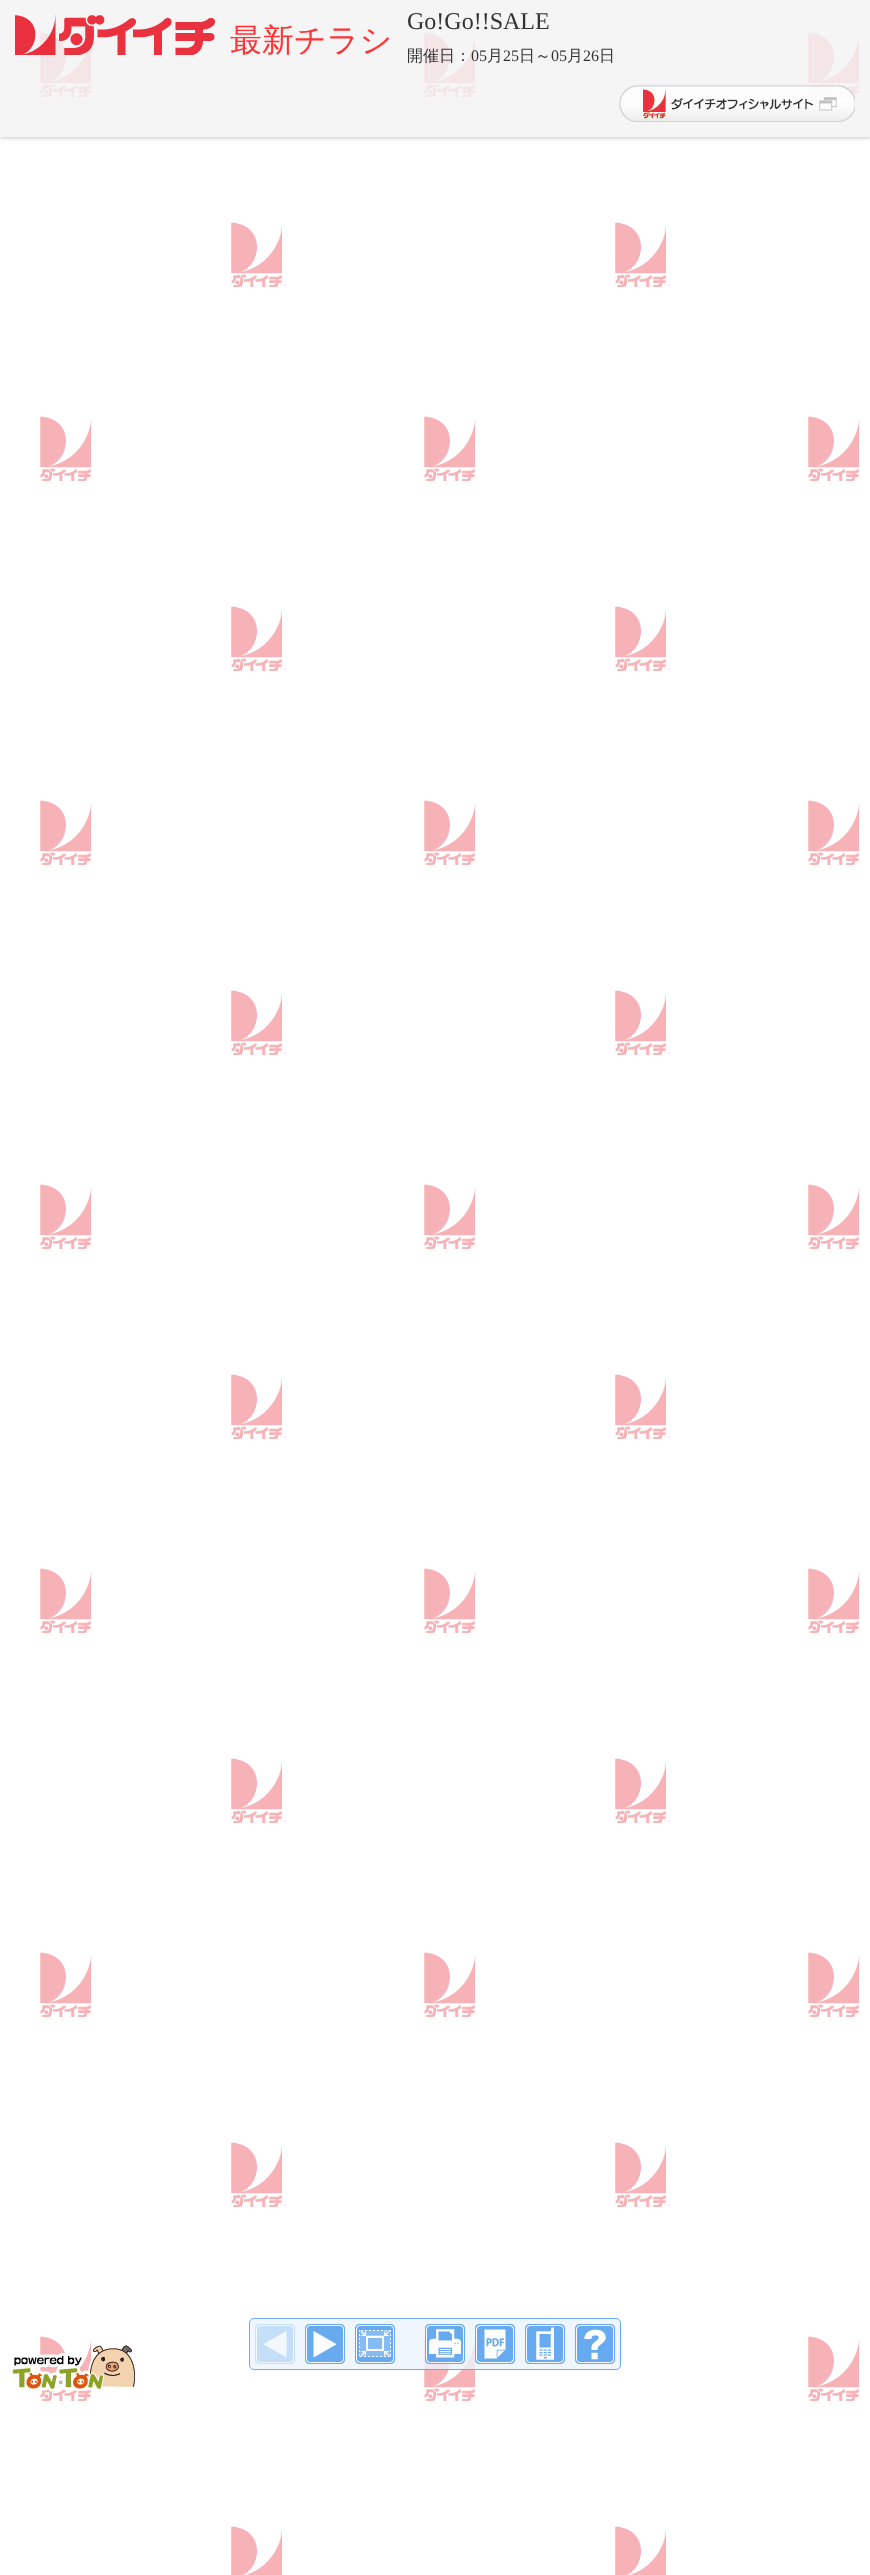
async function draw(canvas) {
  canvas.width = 870
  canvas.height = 2575
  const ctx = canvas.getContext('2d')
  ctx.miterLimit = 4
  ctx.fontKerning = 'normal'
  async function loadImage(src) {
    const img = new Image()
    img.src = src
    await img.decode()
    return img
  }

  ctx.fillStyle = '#fff'
  ctx.fillRect(0, 0, 870, 2575)
  ctx.drawImage(await loadImage('image0.png'), 40, 32, 819, 2543)
  ctx.save()
  ctx.beginPath()
  ctx.rect(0, 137, 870, 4)
  ctx.clip()
  ctx.fillStyle = '#33333366'
  ctx.filter = 'blur(2.5px)'
  ctx.beginPath()
  ctx.rect(0, 0, 870, 137)
  ctx.fill()
  ctx.filter = 'none'
  ctx.restore()
  ctx.fillStyle = '#f2f2f2cc'
  ctx.fillRect(0, 0, 870, 137)
  ctx.drawImage(await loadImage('image1.png'), 15, 15, 200, 40)
  ctx.font = '500 32px WenQuanYi Zen Hei'
  ctx.fillStyle = '#f33'
  ctx.fillText('最新チラシ', 230, 51)
  ctx.font = '24px Liberation Serif'
  ctx.fillStyle = '#333'
  ctx.fillText('Go!Go!!SALE', 407, 29)
  ctx.font = '500 16px WenQuanYi Zen Hei'
  ctx.fillText('開催日：', 407, 61)
  ctx.font = '16px Liberation Serif'
  ctx.fillText('05', 471, 61)
  ctx.font = '500 16px WenQuanYi Zen Hei'
  ctx.fillText('月', 487, 61)
  ctx.font = '16px Liberation Serif'
  ctx.fillText('25', 503, 61)
  ctx.font = '500 16px WenQuanYi Zen Hei'
  ctx.fillText('日～', 519, 61)
  ctx.font = '16px Liberation Serif'
  ctx.fillText('05', 551, 61)
  ctx.font = '500 16px WenQuanYi Zen Hei'
  ctx.fillText('月', 567, 61)
  ctx.font = '16px Liberation Serif'
  ctx.fillText('26', 583, 61)
  ctx.font = '500 16px WenQuanYi Zen Hei'
  ctx.fillText('日', 599, 61)
  ctx.drawImage(await loadImage('image2.png'), 619, 85, 236, 37)
  ctx.drawImage(await loadImage('image3.png'), 12, 2345, 123, 46)
  ctx.fillStyle = '#ecf4fdcc'
  ctx.beginPath()
  ctx.roundRect(249, 2318, 372, 52, 5)
  ctx.fill()
  ctx.beginPath()
  ctx.roundRect(249.5, 2318.5, 371, 51, 4.5)
  ctx.strokeStyle = '#4798edcc'
  ctx.stroke()
  ctx.drawImage(await loadImage('image4.png'), 255, 2324, 40, 40)
  ctx.drawImage(await loadImage('image5.png'), 305, 2324, 40, 40)
  ctx.drawImage(await loadImage('image6.png'), 355, 2324, 40, 40)
  ctx.drawImage(await loadImage('image7.png'), 425, 2324, 40, 40)
  ctx.drawImage(await loadImage('image8.png'), 475, 2324, 40, 40)
  ctx.drawImage(await loadImage('image9.png'), 525, 2324, 40, 40)
  ctx.drawImage(await loadImage('image10.png'), 575, 2324, 40, 40)
}

draw(document.querySelector('canvas'))
